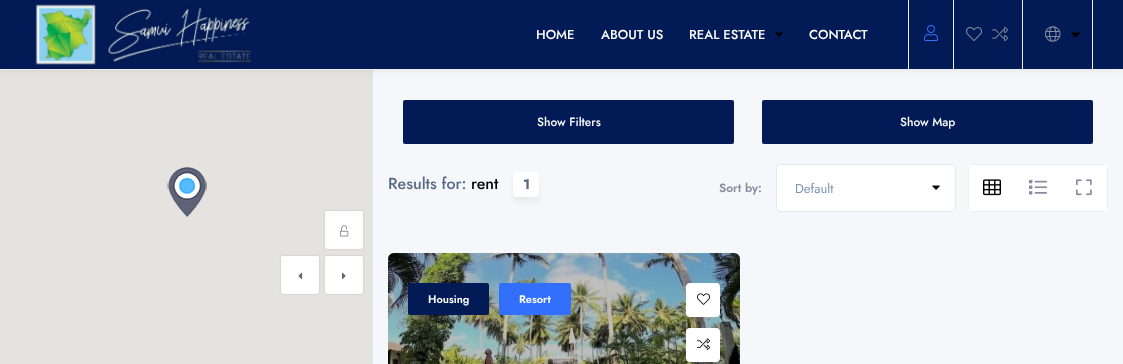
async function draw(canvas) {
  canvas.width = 1123
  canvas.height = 364
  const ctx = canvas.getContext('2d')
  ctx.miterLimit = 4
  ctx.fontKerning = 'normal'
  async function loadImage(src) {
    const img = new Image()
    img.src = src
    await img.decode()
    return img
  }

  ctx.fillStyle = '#e5e3df'
  ctx.fillRect(0, 0, 1123, 364)
  ctx.fillStyle = '#f5f7fb'
  ctx.fillRect(373, 70, 750, 294)
  ctx.fillStyle = '#00000012'
  ctx.filter = 'blur(5px)'
  ctx.beginPath()
  ctx.rect(0, 0, 1123, 70)
  ctx.fill()
  ctx.filter = 'none'
  ctx.fillStyle = '#021a56'
  ctx.fillRect(0, 0, 1123, 69)
  ctx.fillStyle = '#eee'
  ctx.fillRect(0, 69, 1123, 1)
  ctx.drawImage(await loadImage('image0.png'), 35, 3, 217, 62)
  ctx.font = '500 13px Jost'
  ctx.fillStyle = '#fff'
  ctx.fillText('HOME', 536, 39)
  ctx.fillText('ABOUT US', 601, 39)
  ctx.fillText('REAL ESTATE', 689, 39)
  ctx.drawImage(await loadImage('image1.png'), 775, 32, 8, 5)
  ctx.fillText('CONTACT', 809, 39)
  ctx.fillStyle = '#eee'
  ctx.fillRect(908, 0, 1, 70)
  ctx.drawImage(await loadImage('image2.png'), 924, 25, 14, 16)
  ctx.fillRect(1022, 0, 1, 70)
  ctx.fillRect(953, 0, 1, 70)
  ctx.drawImage(await loadImage('image3.png'), 966, 27, 16, 14)
  ctx.drawImage(await loadImage('image4.png'), 992, 27, 16, 14)
  ctx.fillRect(1092, 0, 1, 70)
  ctx.drawImage(await loadImage('image5.png'), 1045, 26, 16, 16)
  ctx.drawImage(await loadImage('image6.png'), 1071, 32, 9, 6)
  ctx.drawImage(await loadImage('image7.png'), 167, 167, 40, 50)
  ctx.fillStyle = '#3a578740'
  ctx.filter = 'blur(1px)'
  ctx.beginPath()
  ctx.roundRect(325, 211, 38, 38, 2)
  ctx.fill()
  ctx.filter = 'none'
  ctx.fillStyle = '#fff'
  ctx.beginPath()
  ctx.roundRect(325, 211, 38, 38, 2)
  ctx.fill()
  ctx.drawImage(await loadImage('image8.png'), 340, 225, 9, 12)
  ctx.fillStyle = '#3a578740'
  ctx.filter = 'blur(1px)'
  ctx.beginPath()
  ctx.roundRect(281, 256, 38, 38, 2)
  ctx.fill()
  ctx.filter = 'none'
  ctx.fillStyle = '#fff'
  ctx.beginPath()
  ctx.roundRect(281, 256, 38, 38, 2)
  ctx.fill()
  ctx.drawImage(await loadImage('image9.png'), 298, 272, 5, 7)
  ctx.fillStyle = '#3a578740'
  ctx.filter = 'blur(1px)'
  ctx.beginPath()
  ctx.roundRect(325, 256, 38, 38, 2)
  ctx.fill()
  ctx.filter = 'none'
  ctx.fillStyle = '#fff'
  ctx.beginPath()
  ctx.roundRect(325, 256, 38, 38, 2)
  ctx.fill()
  ctx.drawImage(await loadImage('image10.png'), 342, 272, 4, 7)
  ctx.fillStyle = '#021a56'
  ctx.beginPath()
  ctx.roundRect(403, 100, 331, 44, 2)
  ctx.fill()
  ctx.font = '500 12px Jost'
  ctx.fillStyle = '#fff'
  ctx.fillText('Show Filters', 537, 126)
  ctx.fillStyle = '#021a56'
  ctx.beginPath()
  ctx.roundRect(762, 100, 331, 44, 2)
  ctx.fill()
  ctx.fillStyle = '#fff'
  ctx.fillText('Show Map', 900, 126)
  ctx.font = '500 16px Jost'
  ctx.fillStyle = '#566985'
  ctx.fillText('Results for:', 388, 189)
  ctx.fillStyle = '#000'
  ctx.fillText('rent', 471, 189)
  ctx.fillStyle = '#0000000d'
  ctx.filter = 'blur(2.5px)'
  ctx.beginPath()
  ctx.roundRect(513, 177, 26, 25, 4)
  ctx.fill()
  ctx.filter = 'none'
  ctx.fillStyle = '#fff'
  ctx.beginPath()
  ctx.roundRect(513, 172, 26, 25, 4)
  ctx.fill()
  ctx.font = 'bold 14px Jost'
  ctx.fillStyle = '#566985'
  ctx.fillText('1', 523, 189)
  ctx.font = '600 12px Jost'
  ctx.fillStyle = '#878c9f'
  ctx.fillText('Sort by:', 719, 192)
  ctx.fillStyle = '#fff'
  ctx.beginPath()
  ctx.roundRect(776.5, 164.5, 179, 47, 4.5)
  ctx.fill()
  ctx.strokeStyle = '#e5e7f2'
  ctx.stroke()
  ctx.font = '13px Jost'
  ctx.fillStyle = '#7d93b2'
  ctx.fillText('Default', 795, 193)
  ctx.drawImage(await loadImage('image11.png'), 932, 185, 8, 5)
  ctx.beginPath()
  ctx.roundRect(968.5, 164.5, 139, 47, 3.5)
  ctx.strokeStyle = '#eee'
  ctx.stroke()
  ctx.fillStyle = '#fff'
  ctx.fillRect(969, 165, 138, 46)
  ctx.drawImage(await loadImage('image12.png'), 983, 179, 18, 17)
  ctx.drawImage(await loadImage('image13.png'), 1029, 179, 18, 16)
  ctx.drawImage(await loadImage('image14.png'), 1076, 179, 16, 17)
  ctx.drawImage(await loadImage('image15.png'), 388, 253, 352, 111)
  ctx.fillStyle = '#00000040'
  ctx.beginPath()
  ctx.moveTo(394, 253)
  ctx.lineTo(734, 253)
  ctx.bezierCurveTo(737.5, 253, 740, 255.5, 740, 259)
  ctx.lineTo(740, 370)
  ctx.lineTo(388, 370)
  ctx.lineTo(388, 259)
  ctx.bezierCurveTo(388, 255.5, 390.5, 253, 394, 253)
  ctx.closePath()
  ctx.fill()
  ctx.fillStyle = '#021a56'
  ctx.beginPath()
  ctx.roundRect(408, 283, 81, 32, 2)
  ctx.fill()
  ctx.font = '600 11px Jost'
  ctx.fillStyle = '#fff'
  ctx.fillText('Housing', 428, 303)
  ctx.fillStyle = '#3270fc'
  ctx.beginPath()
  ctx.roundRect(499, 283, 72, 32, 2)
  ctx.fill()
  ctx.fillStyle = '#fff'
  ctx.fillText('Resort', 519, 303)
  ctx.beginPath()
  ctx.roundRect(686, 283, 34, 34, 4)
  ctx.fill()
  ctx.font = '11px Jost'
  ctx.fillStyle = '#7d9c9d'
  ctx.fillText('L', 639, 304)
  ctx.drawImage(await loadImage('image16.png'), 697, 293, 13, 12)
  ctx.fillStyle = '#fff'
  ctx.beginPath()
  ctx.roundRect(686, 328, 34, 34, 4)
  ctx.fill()
  ctx.fillStyle = '#4a563f'
  ctx.fillText('Compare', 622, 349)
  ctx.drawImage(await loadImage('image17.png'), 697, 338, 13, 12)
}

draw(document.querySelector('canvas'))
